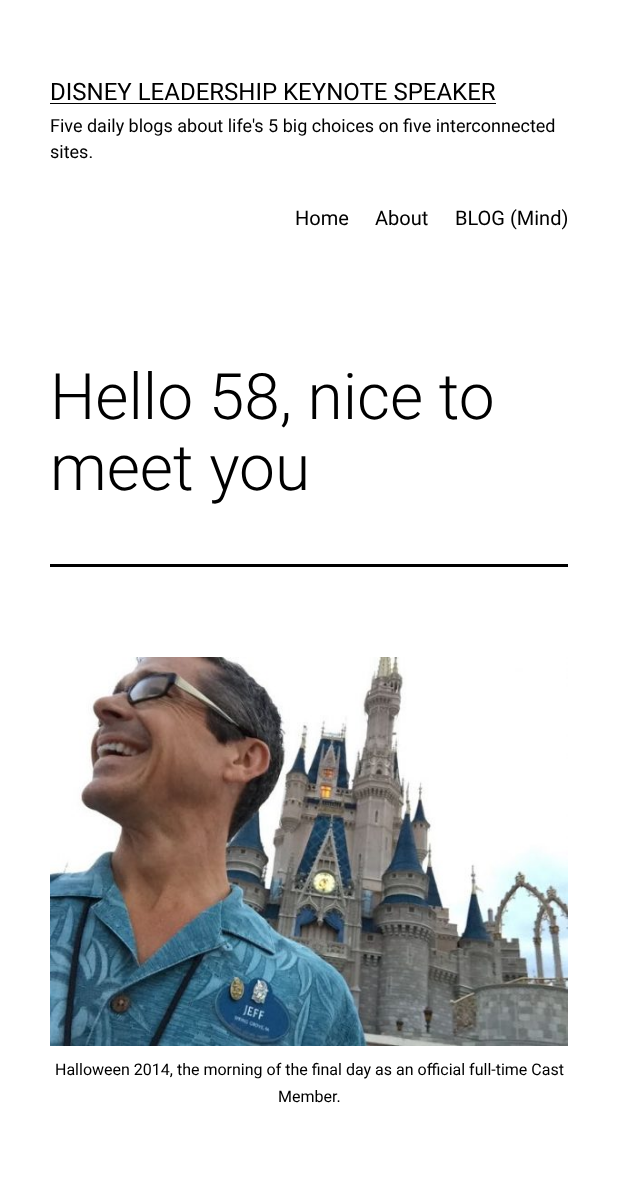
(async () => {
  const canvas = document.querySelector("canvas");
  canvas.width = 618;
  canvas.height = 1184;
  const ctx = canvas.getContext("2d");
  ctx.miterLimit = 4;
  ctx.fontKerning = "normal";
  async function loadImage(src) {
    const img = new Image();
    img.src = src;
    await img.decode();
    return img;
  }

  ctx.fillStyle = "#ffffff";
  ctx.fillRect(0, 0, 618, 1184);
  ctx.fillStyle = "#000000";
  ctx.fillRect(50, 103, 446, 1);
  ctx.fillRect(50, 564, 518, 3);
  ctx.drawImage(await loadImage("img/1.png"), 50, 657, 518, 389);
  ctx.font = "24px Roboto";
  ctx.fillText("DISNEY LEADERSHIP KEYNOTE SPEAKER", 50, 100);
  ctx.font = "18px Roboto";
  ctx.fillText("Five daily blogs about life's 5 big choices on five interconnected", 50, 132);
  ctx.fillText("sites.", 50, 158);
  ctx.font = "20px Roboto";
  for (const [text, x, y] of [
    ["Home", 295, 225],
    ["About", 375, 225],
    ["BLOG (Mind)", 455, 225],
  ]) {
    ctx.fillText(text, x, y);
  }
  ctx.font = "300 64px Roboto";
  ctx.fillText("Hello 58, nice to", 50, 419);
  ctx.fillText("meet you", 50, 490);
  ctx.font = "16px Roboto";
  ctx.fillText("Halloween 2014, the morning of the final day as an official full-time Cast", 55, 1075);
  ctx.fillText("Member.", 278, 1102);
})();
